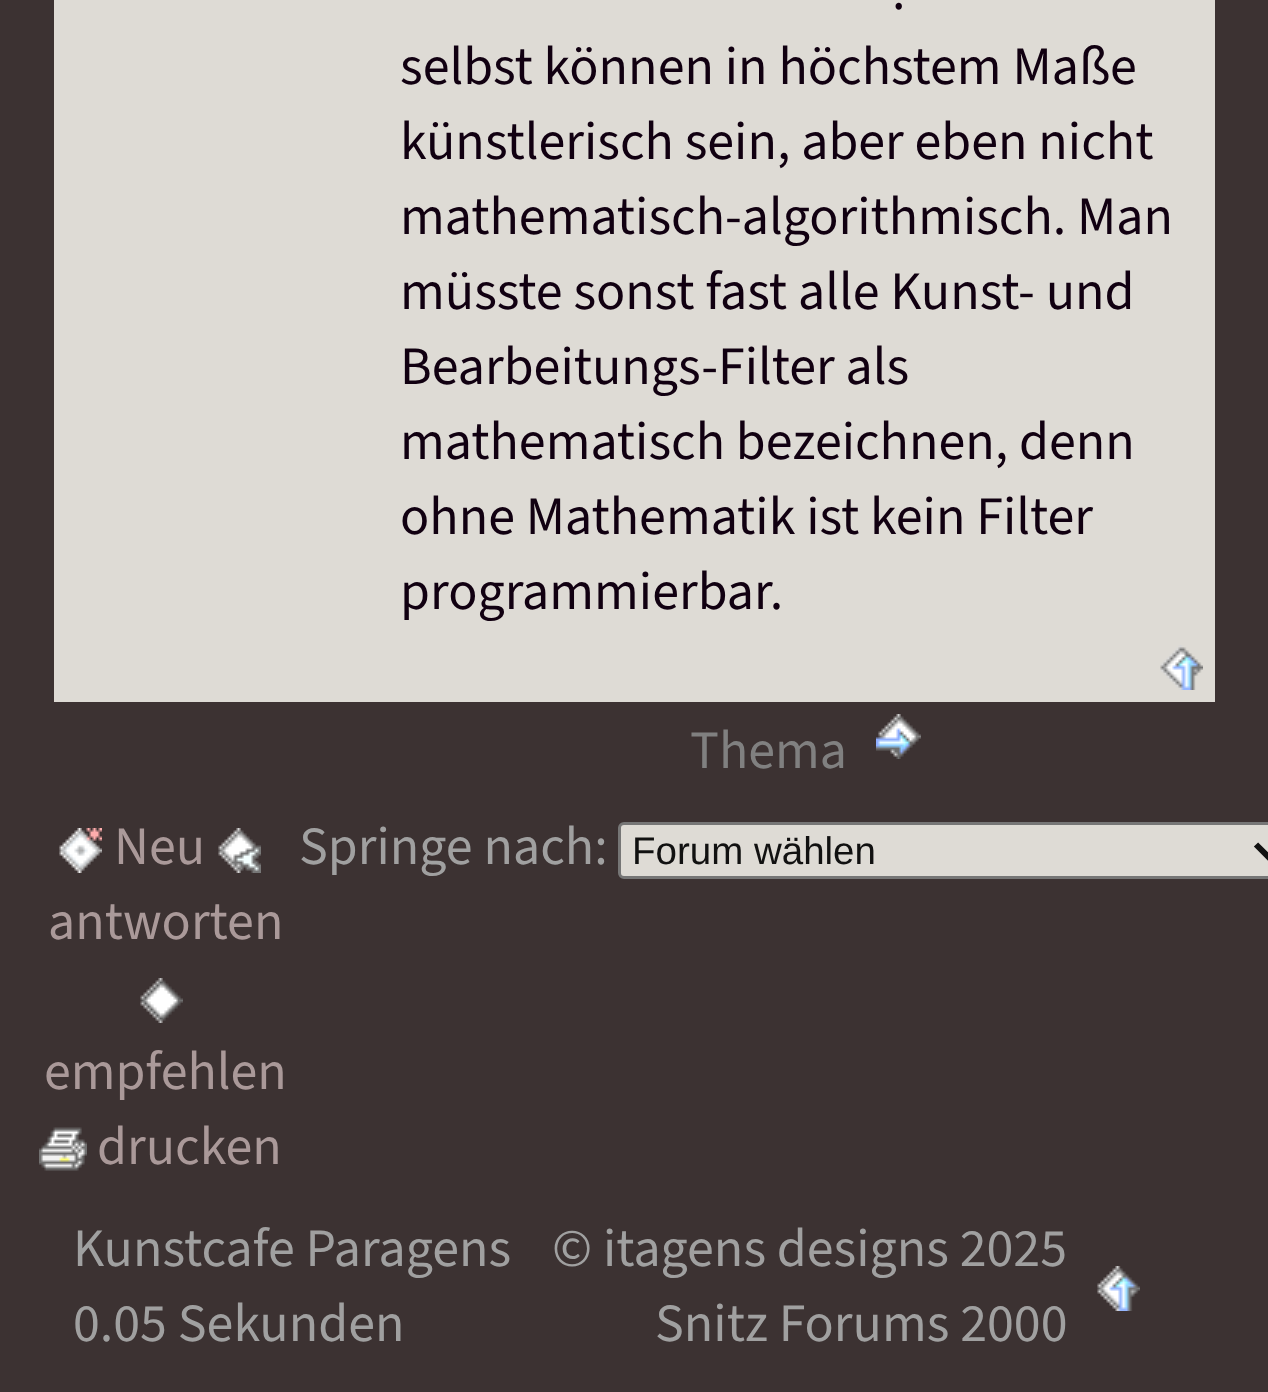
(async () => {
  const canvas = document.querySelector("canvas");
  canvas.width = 1268;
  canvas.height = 1392;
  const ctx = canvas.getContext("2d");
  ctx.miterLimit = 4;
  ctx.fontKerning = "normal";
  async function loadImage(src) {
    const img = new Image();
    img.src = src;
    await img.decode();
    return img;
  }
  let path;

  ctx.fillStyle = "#3c3232";
  ctx.fillRect(0, 0, 1268, 1392);
  ctx.fillStyle = "#dedbd5";
  ctx.fillRect(54, 0, 1161, 702);
  ctx.drawImage(await loadImage("img/1.png"), 1160, 645, 43, 45);
  ctx.drawImage(await loadImage("img/2.png"), 876, 714, 45, 45);
  ctx.drawImage(await loadImage("img/3.png"), 59, 828, 43, 45);
  ctx.drawImage(await loadImage("img/4.png"), 218, 828, 43, 45);
  ctx.drawImage(await loadImage("img/5.png"), 140, 978, 43, 45);
  ctx.drawImage(await loadImage("img/6.png"), 39, 1127, 48, 44);
  ctx.beginPath();
  ctx.roundRect(619.5, 823.5, 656, 54, 4.5);
  ctx.fill();
  ctx.strokeStyle = "#767676";
  ctx.lineWidth = 3;
  ctx.stroke();
  path = new Path2D("M1256 844.5L1268 856.5L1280 844.5");
  ctx.strokeStyle = "#111111";
  ctx.lineWidth = 6;
  ctx.stroke(path);
  ctx.drawImage(await loadImage("img/7.png"), 1097, 1266, 43, 45);
  ctx.font = "54px 'Source Sans 3'";
  ctx.fillStyle = "#110011";
  for (const [text, x, y] of [
    [".", 892, 9],
    ["selbst können in höchstem Maße", 400, 84],
    ["künstlerisch sein, aber eben nicht", 400, 159],
    ["mathematisch-algorithmisch. Man", 400, 234],
    ["müsste sonst fast alle Kunst- und", 400, 309],
    ["Bearbeitungs-Filter als", 400, 384],
    ["mathematisch bezeichnen, denn", 400, 459],
    ["ohne Mathematik ist kein Filter", 400, 534],
    ["programmierbar.", 400, 609],
  ]) {
    ctx.fillText(text, x, y);
  }
  ctx.fillStyle = "#808080";
  ctx.fillText("Thema", 690, 768);
  ctx.fillStyle = "#aa9999";
  for (const [text, x, y] of [
    ["Neu", 114, 864],
    ["antworten", 48, 939],
    ["empfehlen", 44, 1089],
    ["drucken", 97, 1164],
  ]) {
    ctx.fillText(text, x, y);
  }
  ctx.fillStyle = "#a0a0a0";
  ctx.fillText("Springe nach:", 299, 864);
  ctx.font = "38.5px Liberation Sans";
  ctx.fillStyle = "#111111";
  ctx.fillText("Forum wählen", 632, 864);
  ctx.font = "54px 'Source Sans 3'";
  ctx.fillStyle = "#a0a0a0";
  for (const [text, x, y] of [
    ["Kunstcafe Paragens", 73, 1266],
    ["0.05 Sekunden", 73, 1341],
    ["© itagens designs 2025", 552, 1266],
    ["Snitz Forums 2000", 655, 1341],
  ]) {
    ctx.fillText(text, x, y);
  }
})();
